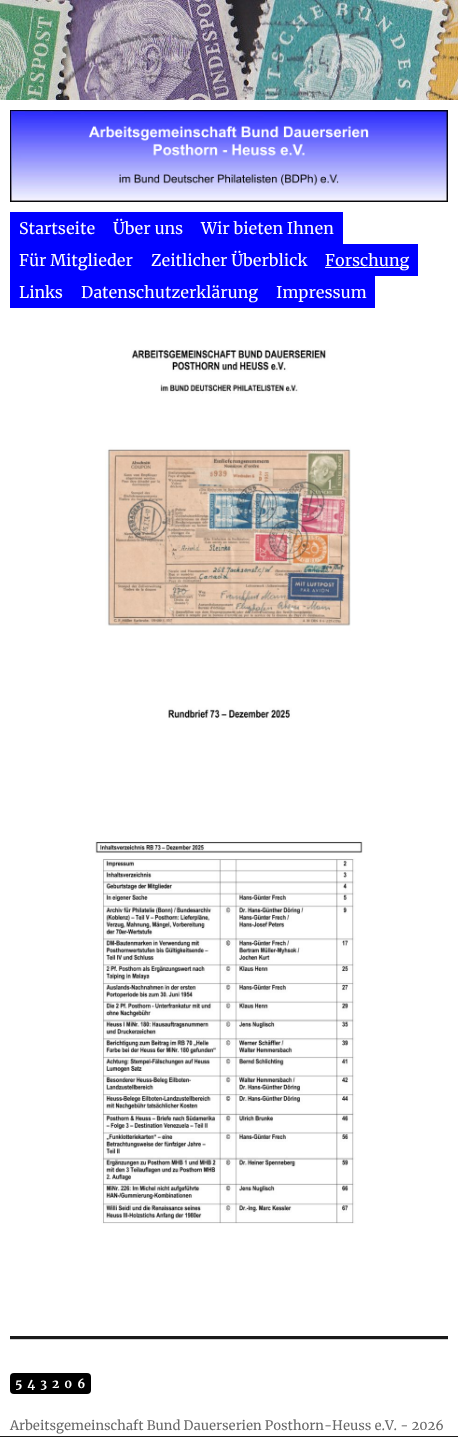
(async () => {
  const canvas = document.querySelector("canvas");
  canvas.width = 458;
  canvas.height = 1437;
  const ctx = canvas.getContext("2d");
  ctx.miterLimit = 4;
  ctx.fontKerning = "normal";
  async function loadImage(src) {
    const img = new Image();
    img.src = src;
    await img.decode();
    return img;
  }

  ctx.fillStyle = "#1a1a1a";
  ctx.fillRect(0, 0, 458, 1437);
  ctx.drawImage(await loadImage("img/1.png"), 0, 0, 458, 100);
  ctx.fillStyle = "#ffffff";
  ctx.fillRect(0, 100, 458, 1336);
  ctx.drawImage(await loadImage("img/2.png"), 10, 110, 438, 92);
  for (const [x, y, w, h, color] of [
    [10, 212, 333, 32, "#0000ff"],
    [10, 244, 408, 32, "#0000ff"],
    [325, 267, 84, 1, "#ffffff"],
    [10, 276, 365, 32, "#0000ff"],
  ]) {
    ctx.fillStyle = color;
    ctx.fillRect(x, y, w, h);
  }
  ctx.drawImage(await loadImage("img/3.png"), 105, 349, 246, 370);
  ctx.drawImage(await loadImage("img/4.png"), 95, 841, 268, 383);
  ctx.fillStyle = "#1a1a1a";
  ctx.fillRect(10, 1336, 438, 3);
  ctx.fillStyle = "#d1d1d1";
  ctx.fillRect(10, 1339, 438, 1);
  ctx.fillStyle = "#000000";
  ctx.beginPath();
  ctx.roundRect(10, 1373, 81, 21, 4);
  ctx.fill();
  ctx.font = "16px Merriweather";
  ctx.fillStyle = "#ffffff";
  for (const [text, x, y] of [
    ["Startseite", 19, 234],
    ["Über uns", 113, 234],
    ["Wir bieten Ihnen", 201, 234],
    ["Für Mitglieder", 19, 266],
    ["Zeitlicher Überblick", 151, 266],
    ["Forschung", 325, 266],
    ["Links", 19, 298],
    ["Datenschutzerklärung", 81, 298],
    ["Impressum", 276, 298],
  ]) {
    ctx.fillText(text, x, y);
  }
  ctx.letterSpacing = "5px";
  ctx.font = "bold 12px Merriweather";
  ctx.fillText("543206", 15, 1388);
  ctx.letterSpacing = "0px";
  ctx.font = "13px Merriweather";
  ctx.fillStyle = "#686868";
  ctx.fillText("Arbeitsgemeinschaft Bund Dauerserien Posthorn-Heuss e.V. - 2026", 10, 1430);
})();
